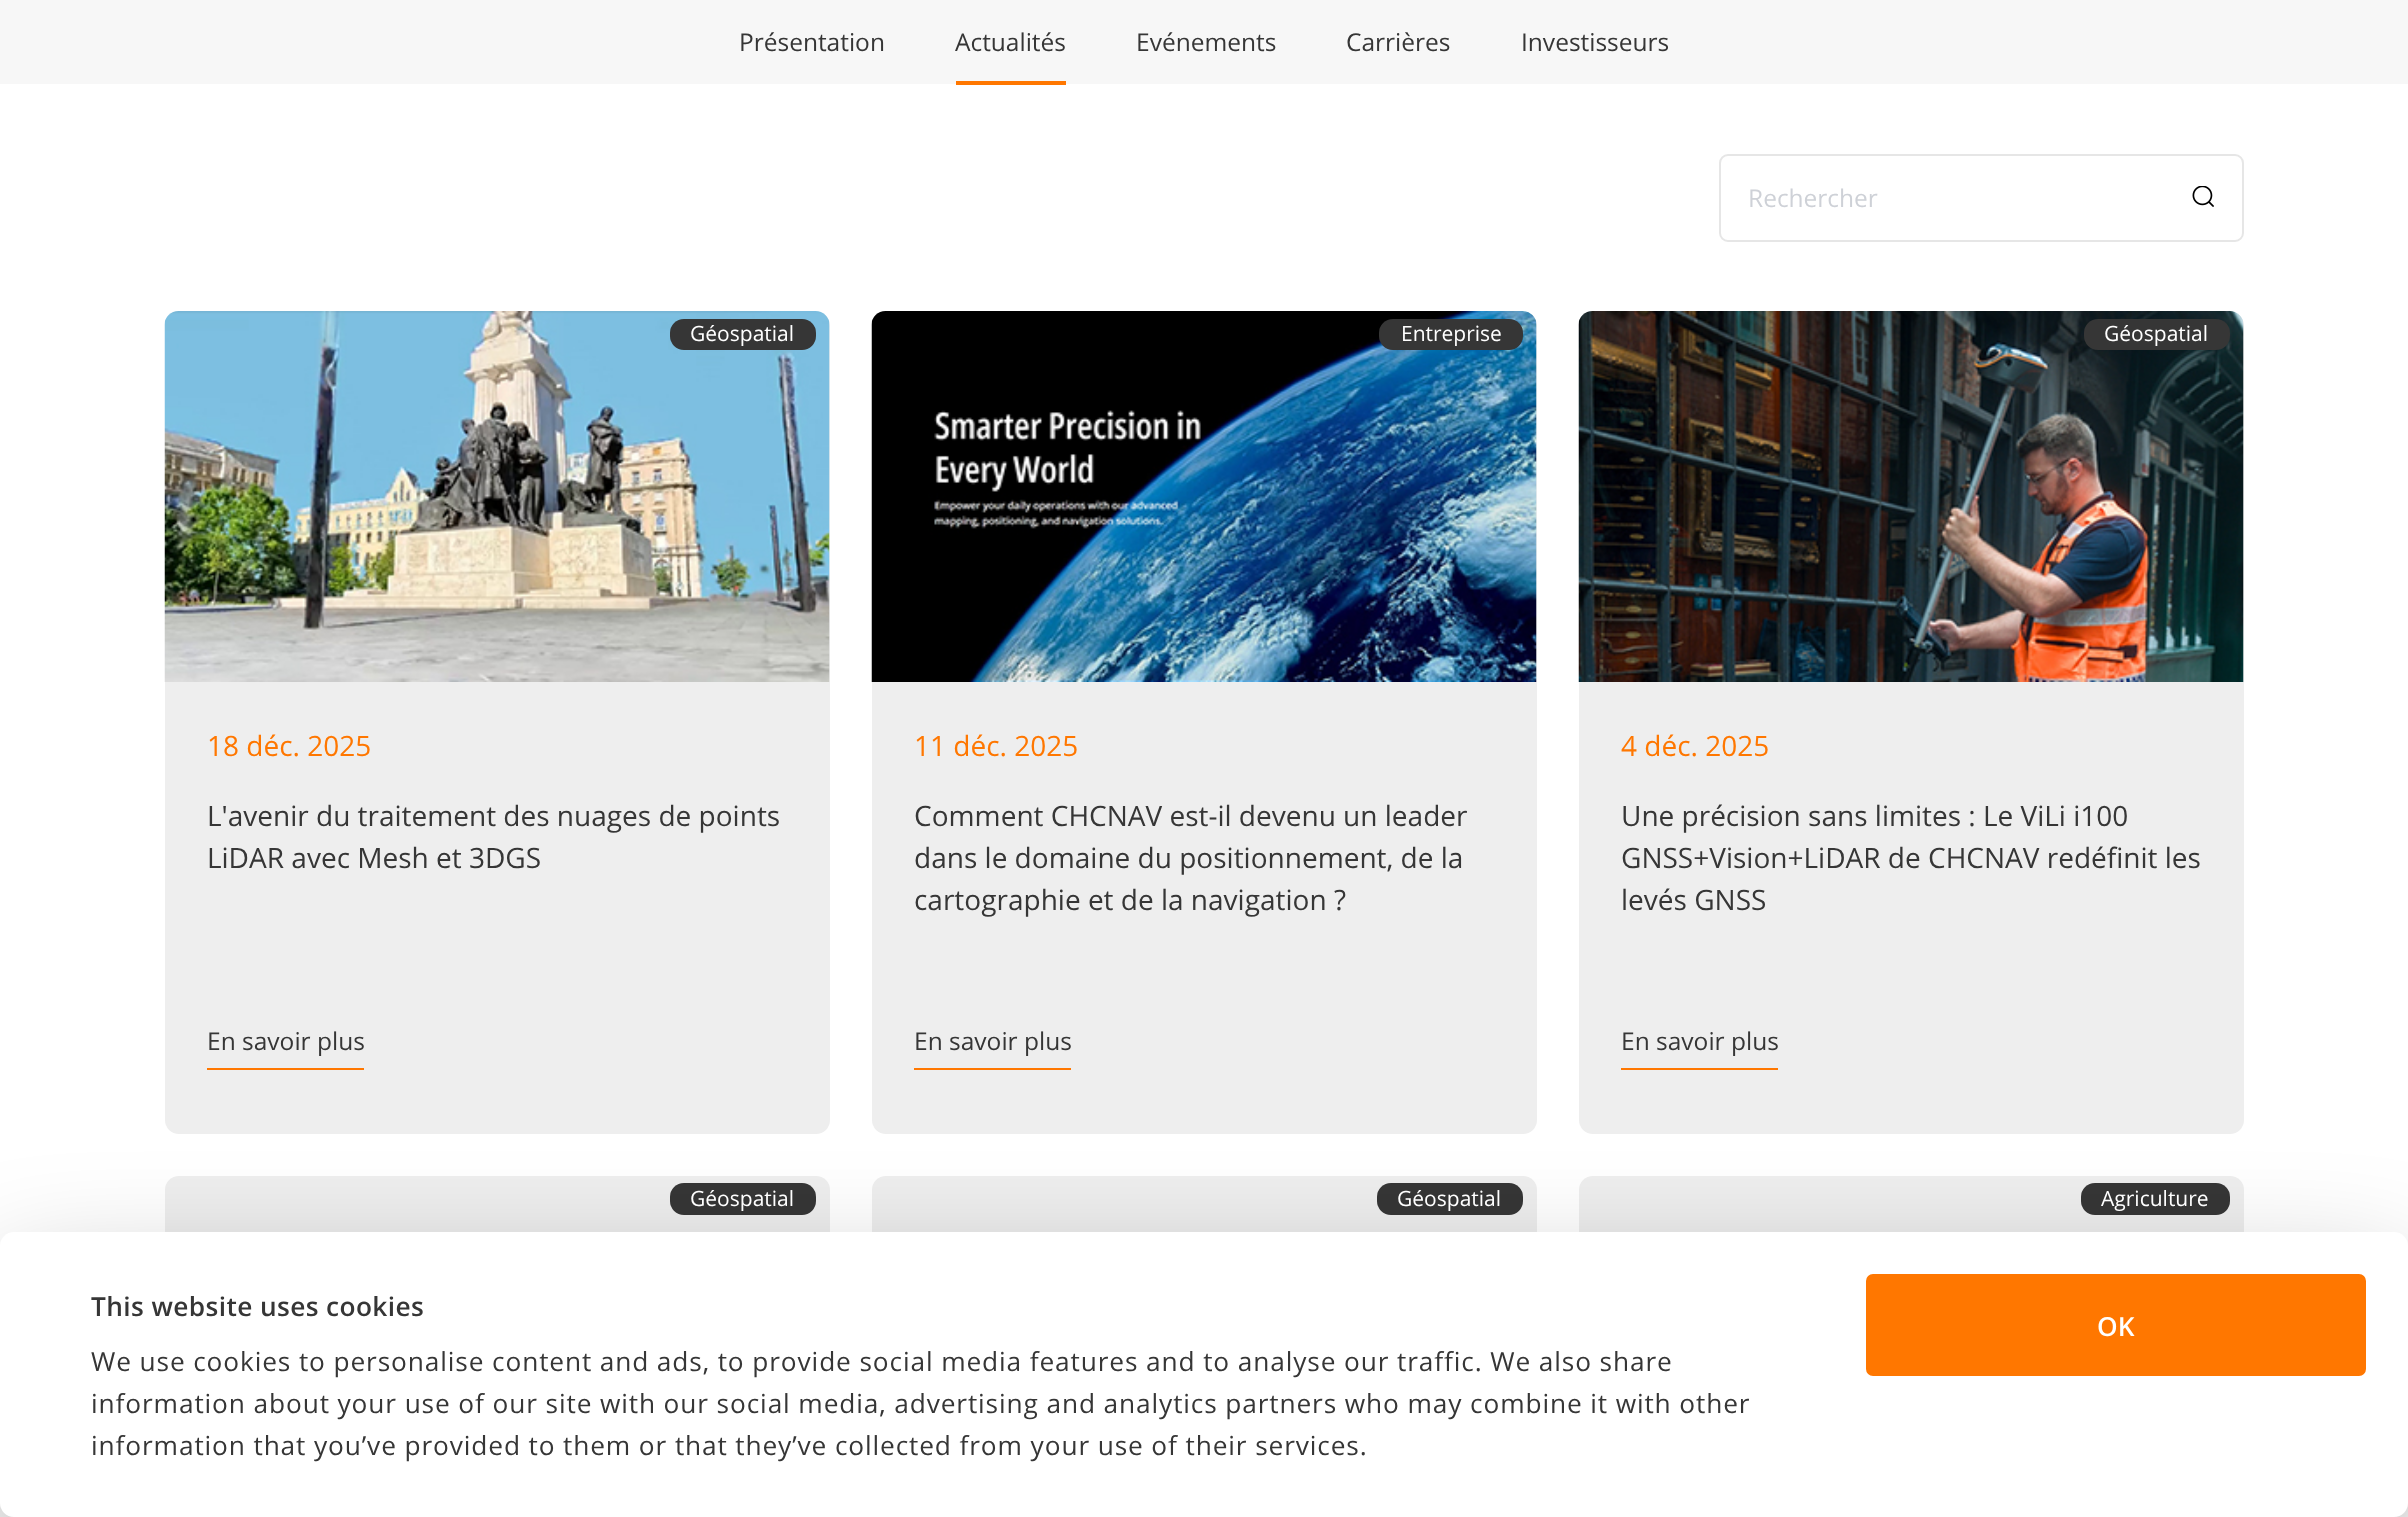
(async () => {
  const canvas = document.querySelector("canvas");
  canvas.width = 2408;
  canvas.height = 1517;
  const ctx = canvas.getContext("2d");
  ctx.miterLimit = 4;
  ctx.fontKerning = "normal";
  async function loadImage(src) {
    const img = new Image();
    img.src = src;
    await img.decode();
    return img;
  }

  ctx.fillStyle = "#ffffff";
  ctx.fillRect(0, 0, 2408, 1517);
  ctx.fillStyle = "#f7f7f7";
  ctx.fillRect(0, 0, 2408, 84);
  ctx.fillStyle = "#ff7700";
  ctx.fillRect(956, 81, 110, 4);
  ctx.beginPath();
  ctx.roundRect(1720, 155, 523, 86, 8);
  ctx.strokeStyle = "#e6e6e6";
  ctx.lineWidth = 2;
  ctx.stroke();
  ctx.drawImage(await loadImage("img/1.png"), 2192, 186, 22, 21);
  ctx.fillStyle = "#eeeeee";
  ctx.beginPath();
  ctx.roundRect(165, 312, 665, 822, 14);
  ctx.fill();
  ctx.drawImage(await loadImage("img/2.png"), 164, 311, 666, 371);
  ctx.fillStyle = "#363636";
  ctx.beginPath();
  ctx.roundRect(670, 319, 146, 31, 14);
  ctx.fill();
  ctx.fillStyle = "#ff7700";
  ctx.fillRect(207, 1068, 157, 2);
  ctx.fillStyle = "#eeeeee";
  ctx.beginPath();
  ctx.roundRect(872, 312, 665, 822, 14);
  ctx.fill();
  ctx.drawImage(await loadImage("img/3.png"), 871, 311, 666, 371);
  ctx.fillStyle = "#363636";
  ctx.beginPath();
  ctx.roundRect(1379, 319, 144, 31, 14);
  ctx.fill();
  ctx.fillStyle = "#ff7700";
  ctx.fillRect(914, 1068, 157, 2);
  ctx.fillStyle = "#eeeeee";
  ctx.beginPath();
  ctx.roundRect(1579, 312, 665, 822, 14);
  ctx.fill();
  ctx.drawImage(await loadImage("img/4.png"), 1578, 311, 666, 371);
  ctx.fillStyle = "#363636";
  ctx.beginPath();
  ctx.roundRect(2084, 319, 146, 31, 14);
  ctx.fill();
  ctx.fillStyle = "#ff7700";
  ctx.fillRect(1621, 1068, 157, 2);
  ctx.fillStyle = "#eeeeee";
  ctx.beginPath();
  ctx.roundRect(165, 1176, 665, 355, 14);
  ctx.fill();
  ctx.fillStyle = "#363636";
  ctx.beginPath();
  ctx.roundRect(670, 1183, 146, 32, 14);
  ctx.fill();
  ctx.fillStyle = "#eeeeee";
  ctx.beginPath();
  ctx.roundRect(872, 1176, 665, 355, 14);
  ctx.fill();
  ctx.fillStyle = "#363636";
  ctx.beginPath();
  ctx.roundRect(1377, 1183, 146, 32, 14);
  ctx.fill();
  ctx.fillStyle = "#eeeeee";
  ctx.beginPath();
  ctx.roundRect(1579, 1176, 665, 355, 14);
  ctx.fill();
  ctx.fillStyle = "#363636";
  ctx.beginPath();
  ctx.roundRect(2081, 1183, 149, 32, 14);
  ctx.fill();
  ctx.fillStyle = "rgba(0, 0, 0, 0.3)";
  ctx.filter = "blur(61px)";
  ctx.beginPath();
  ctx.roundRect(0, 1285, 2408, 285, 14);
  ctx.fill();
  ctx.filter = "none";
  ctx.fillStyle = "#ffffff";
  ctx.beginPath();
  ctx.roundRect(0, 1232, 2408, 285, 14);
  ctx.fill();
  ctx.fillStyle = "#ff7700";
  ctx.beginPath();
  ctx.roundRect(1868, 1276, 496, 98, 5);
  ctx.fill();
  ctx.strokeStyle = "#ff7700";
  ctx.lineWidth = 4;
  ctx.stroke();
  ctx.font = "24.5px Open Sans";
  ctx.fillStyle = "#363636";
  for (const [text, x, y] of [
    ["Présentation", 739, 51],
    ["Actualités", 955, 51],
    ["Evénements", 1136, 51],
    ["Carrières", 1346, 51],
    ["Investisseurs", 1521, 51],
  ]) {
    ctx.fillText(text, x, y);
  }
  ctx.fillStyle = "#ced1d7";
  ctx.fillText("Rechercher", 1748, 207);
  ctx.font = "21px Open Sans";
  ctx.fillStyle = "#ffffff";
  ctx.fillText("Géospatial", 690, 341);
  ctx.font = "28px Open Sans";
  ctx.fillStyle = "#ff7700";
  ctx.fillText("18 déc. 2025", 207, 756);
  ctx.fillStyle = "#363636";
  ctx.fillText("L'avenir du traitement des nuages de points", 207, 826);
  ctx.fillText("LiDAR avec Mesh et 3DGS", 207, 868);
  ctx.font = "24.5px Open Sans";
  ctx.fillText("En savoir plus", 207, 1050);
  ctx.font = "21px Open Sans";
  ctx.fillStyle = "#ffffff";
  ctx.fillText("Entreprise", 1401, 341);
  ctx.font = "28px Open Sans";
  ctx.fillStyle = "#ff7700";
  ctx.fillText("11 déc. 2025", 914, 756);
  ctx.fillStyle = "#363636";
  for (const [text, x, y] of [
    ["Comment CHCNAV est-il devenu un leader", 914, 826],
    ["dans le domaine du positionnement, de la", 914, 868],
    ["cartographie et de la navigation ?", 914, 910],
  ]) {
    ctx.fillText(text, x, y);
  }
  ctx.font = "24.5px Open Sans";
  ctx.fillText("En savoir plus", 914, 1050);
  ctx.font = "21px Open Sans";
  ctx.fillStyle = "#ffffff";
  ctx.fillText("Géospatial", 2104, 341);
  ctx.font = "28px Open Sans";
  ctx.fillStyle = "#ff7700";
  ctx.fillText("4 déc. 2025", 1621, 756);
  ctx.fillStyle = "#363636";
  for (const [text, x, y] of [
    ["Une précision sans limites : Le ViLi i100", 1621, 826],
    ["GNSS+Vision+LiDAR de CHCNAV redéfinit les", 1621, 868],
    ["levés GNSS", 1621, 910],
  ]) {
    ctx.fillText(text, x, y);
  }
  ctx.font = "24.5px Open Sans";
  ctx.fillText("En savoir plus", 1621, 1050);
  ctx.font = "21px Open Sans";
  ctx.fillStyle = "#ffffff";
  for (const [text, x, y] of [
    ["Géospatial", 690, 1206],
    ["Géospatial", 1397, 1206],
    ["Agriculture", 2101, 1206],
  ]) {
    ctx.fillText(text, x, y);
  }
  ctx.letterSpacing = "0.4px";
  ctx.font = "600 26.25px Open Sans";
  ctx.fillStyle = "#363636";
  ctx.fillText("This website uses cookies", 91, 1316);
  ctx.letterSpacing = "0.88px";
  ctx.font = "26.25px Open Sans";
  for (const [text, x, y] of [
    ["We use cookies to personalise content and ads, to provide social media features and to analyse our traffic. We also share", 91, 1371],
    ["information about your use of our site with our social media, advertising and analytics partners who may combine it with other", 91, 1413],
    ["information that you’ve provided to them or that they’ve collected from your use of their services.", 91, 1455],
  ]) {
    ctx.fillText(text, x, y);
  }
  ctx.letterSpacing = "0px";
  ctx.font = "600 26.25px Open Sans";
  ctx.fillStyle = "#ffffff";
  ctx.fillText("OK", 2097, 1336);
})();
